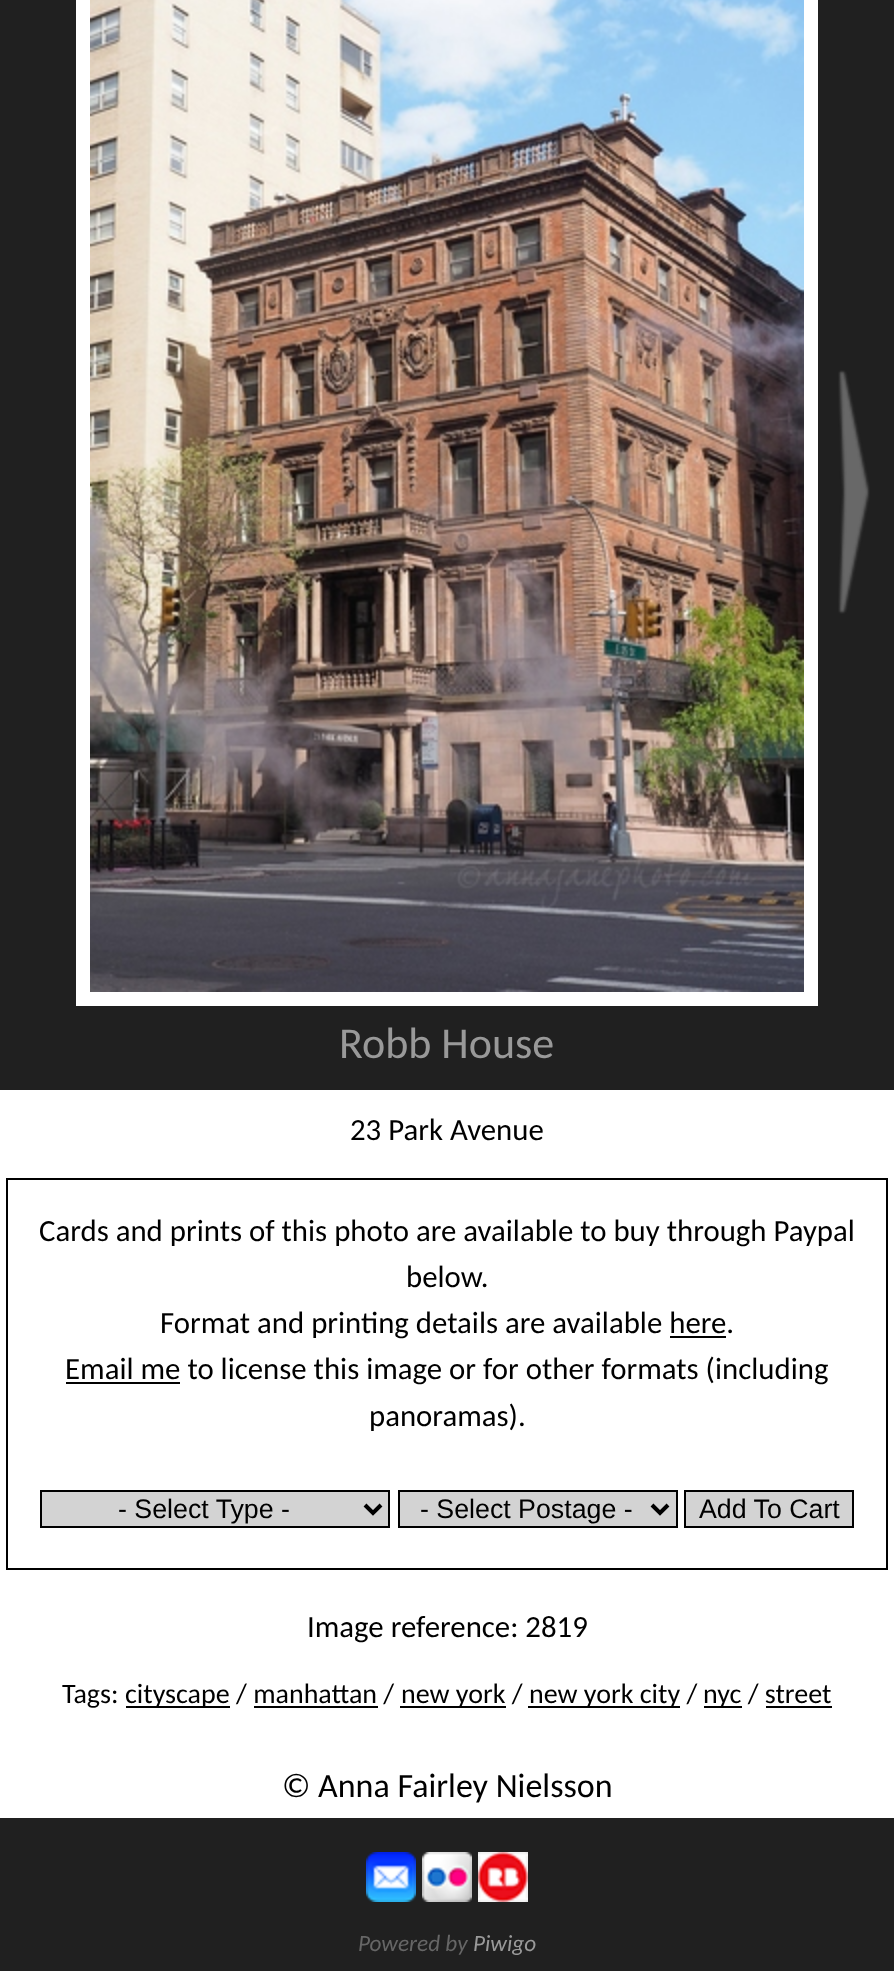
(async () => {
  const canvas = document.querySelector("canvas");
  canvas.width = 894;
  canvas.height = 1971;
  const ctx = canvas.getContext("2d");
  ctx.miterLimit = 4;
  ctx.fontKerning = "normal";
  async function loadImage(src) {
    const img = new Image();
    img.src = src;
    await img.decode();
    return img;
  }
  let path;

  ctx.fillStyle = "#202020";
  ctx.fillRect(0, 0, 894, 1971);
  ctx.strokeStyle = "#ffffff";
  ctx.lineWidth = 14;
  ctx.strokeRect(83, -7, 728, 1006);
  ctx.drawImage(await loadImage("img/1.png"), 90, 0, 714, 992);
  ctx.drawImage(await loadImage("img/2.png"), 838, 370, 32, 244);
  ctx.fillStyle = "#ffffff";
  ctx.fillRect(0, 1090, 894, 728);
  ctx.strokeStyle = "#000000";
  ctx.lineWidth = 2;
  ctx.strokeRect(7, 1179, 880, 390);
  ctx.fillStyle = "#000000";
  ctx.fillRect(670, 1336, 56, 2);
  ctx.fillRect(66, 1382, 114, 2);
  ctx.fillStyle = "#d3d3d3";
  ctx.beginPath();
  ctx.rect(41, 1491, 348, 36);
  ctx.fill();
  ctx.stroke();
  path = new Path2D("M365 1505L373 1513L381 1505");
  ctx.lineWidth = 4;
  ctx.stroke(path);
  ctx.beginPath();
  ctx.rect(399, 1491, 278, 36);
  ctx.fill();
  ctx.lineWidth = 2;
  ctx.stroke();
  path = new Path2D("M652 1505L660 1513L668 1505");
  ctx.lineWidth = 4;
  ctx.stroke(path);
  ctx.beginPath();
  ctx.rect(685, 1491, 168, 36);
  ctx.fill();
  ctx.lineWidth = 2;
  ctx.stroke();
  for (const [x, y, w, h, color] of [
    [126, 1706, 104, 2, "#000000"],
    [400, 1706, 106, 2, "#000000"],
    [528, 1706, 152, 2, "#000000"],
    [704, 1706, 38, 2, "#000000"],
    [254, 1706, 124, 2, "#000000"],
    [766, 1706, 66, 2, "#000000"],
  ]) {
    ctx.fillStyle = color;
    ctx.fillRect(x, y, w, h);
  }
  ctx.drawImage(await loadImage("img/3.png"), 366, 1852, 50, 50);
  ctx.drawImage(await loadImage("img/4.png"), 422, 1852, 50, 50);
  ctx.drawImage(await loadImage("img/5.png"), 478, 1852, 50, 50);
  ctx.font = "44px Carlito";
  ctx.fillStyle = "#999999";
  ctx.fillText("Robb House", 339, 1058);
  ctx.font = "30.8px Carlito";
  ctx.fillStyle = "#000000";
  for (const [text, x, y] of [
    ["23 Park Avenue", 350, 1140],
    ["Cards and prints of this photo are available to buy through Paypal", 39, 1241],
    ["below.", 406, 1287],
    ["Format and printing details are available here.", 160, 1333],
    ["Email me to license this image or for other formats (including", 65, 1379],
    ["panoramas).", 369, 1426],
  ]) {
    ctx.fillText(text, x, y);
  }
  ctx.font = "26.75px Liberation Sans";
  for (const [text, x, y] of [
    ["- Select Type -", 118, 1518],
    ["- Select Postage -", 420, 1518],
    ["Add To Cart", 699, 1518],
  ]) {
    ctx.fillText(text, x, y);
  }
  ctx.font = "30.8px Carlito";
  ctx.fillText("Image reference: 2819", 307, 1637);
  ctx.font = "28px Carlito";
  for (const [text, x, y] of [
    ["Tags:", 62, 1703],
    ["cityscape / manhattan /", 125, 1703],
    ["new york /", 401, 1703],
    ["new york city /", 529, 1703],
    ["nyc / street", 703, 1703],
  ]) {
    ctx.fillText(text, x, y);
  }
  ctx.font = "34px Carlito";
  ctx.fillText("© Anna Fairley Nielsson", 282, 1797);
  ctx.font = "italic 23.25px Carlito";
  ctx.fillStyle = "#666666";
  ctx.fillText("Powered by", 358, 1951);
  ctx.fillStyle = "#999999";
  ctx.fillText("Piwigo", 473, 1951);
})();
